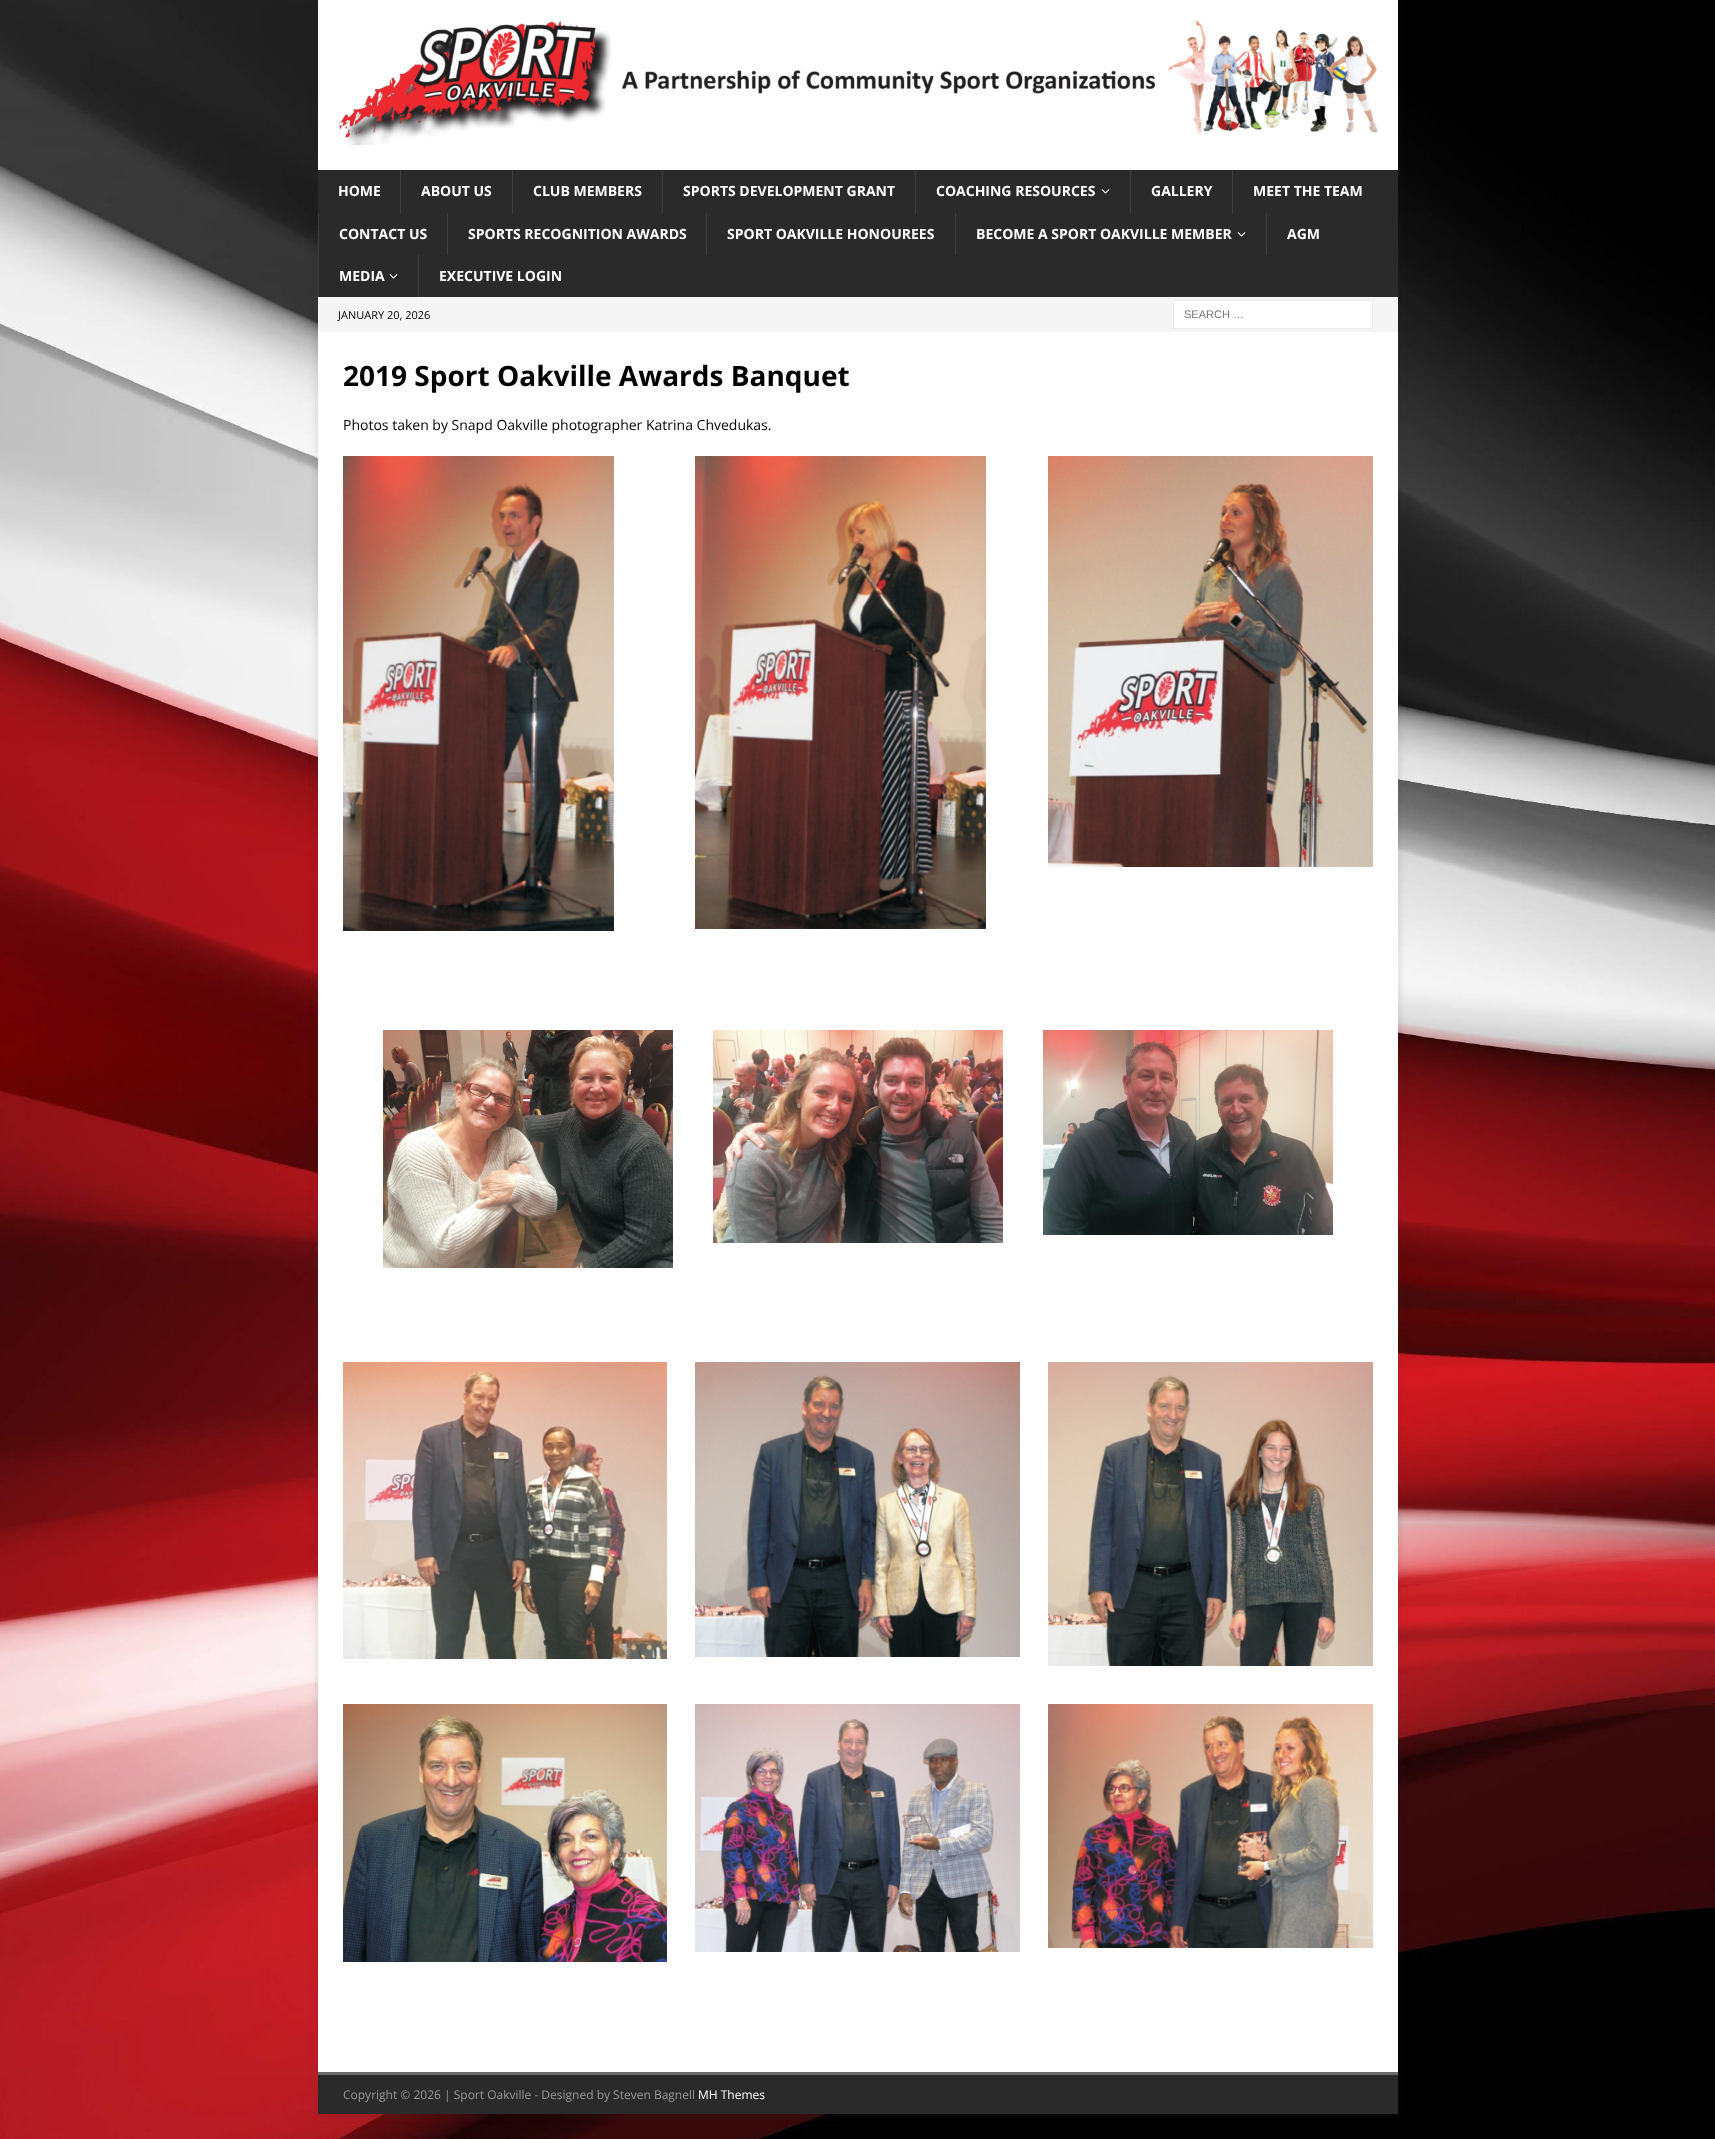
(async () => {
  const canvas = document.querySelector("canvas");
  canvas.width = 1715;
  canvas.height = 2139;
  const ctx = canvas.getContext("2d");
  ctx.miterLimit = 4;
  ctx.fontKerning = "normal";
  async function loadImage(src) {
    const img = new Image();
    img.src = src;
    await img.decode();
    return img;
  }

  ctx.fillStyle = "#ffffff";
  ctx.fillRect(0, 0, 1715, 2139);
  ctx.drawImage(await loadImage("img/1.png"), 0, 0, 1715, 2139);
  ctx.fillStyle = "rgba(50, 50, 50, 0.17)";
  ctx.filter = "blur(5px)";
  ctx.beginPath();
  ctx.rect(318, -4, 1080, 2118);
  ctx.fill();
  ctx.filter = "none";
  ctx.fillStyle = "#ffffff";
  ctx.fillRect(318, 0, 1080, 170);
  ctx.drawImage(await loadImage("img/2.png"), 339, 20, 1039, 125);
  for (const [x, y, w, h, color] of [
    [318, 170, 1080, 127, "#2a2a2a"],
    [400, 170, 1, 43, "#3f3f3f"],
    [512, 170, 1, 43, "#3f3f3f"],
    [662, 170, 1, 43, "#3f3f3f"],
    [915, 170, 1, 43, "#3f3f3f"],
  ]) {
    ctx.fillStyle = color;
    ctx.fillRect(x, y, w, h);
  }
  ctx.drawImage(await loadImage("img/3.png"), 1101, 189, 9, 5);
  for (const [x, y, w, h, color] of [
    [1130, 170, 1, 43, "#3f3f3f"],
    [1232, 170, 1, 43, "#3f3f3f"],
    [318, 213, 1, 84, "#3f3f3f"],
    [447, 213, 1, 42, "#3f3f3f"],
    [706, 213, 1, 42, "#3f3f3f"],
    [955, 213, 1, 42, "#3f3f3f"],
  ]) {
    ctx.fillStyle = color;
    ctx.fillRect(x, y, w, h);
  }
  ctx.drawImage(await loadImage("img/3.png"), 1237, 232, 9, 5);
  ctx.fillRect(1266, 213, 1, 42);
  ctx.drawImage(await loadImage("img/3.png"), 389, 274, 9, 5);
  ctx.fillRect(418, 255, 1, 42);
  ctx.fillStyle = "#f5f5f5";
  ctx.fillRect(318, 297, 1080, 35);
  ctx.fillStyle = "#ffffff";
  ctx.beginPath();
  ctx.rect(1173.5, 300.5, 199, 28);
  ctx.fill();
  ctx.strokeStyle = "#ebebeb";
  ctx.stroke();
  ctx.fillRect(318, 332, 1080, 1740);
  ctx.drawImage(await loadImage("img/4.png"), 343, 456, 271, 475);
  ctx.drawImage(await loadImage("img/5.png"), 695, 456, 291, 473);
  ctx.drawImage(await loadImage("img/6.png"), 1048, 456, 325, 411);
  ctx.drawImage(await loadImage("img/7.png"), 383, 1030, 290, 238);
  ctx.drawImage(await loadImage("img/8.png"), 713, 1030, 290, 213);
  ctx.drawImage(await loadImage("img/9.png"), 1043, 1030, 290, 205);
  ctx.drawImage(await loadImage("img/10.png"), 343, 1362, 324, 297);
  ctx.drawImage(await loadImage("img/11.png"), 695, 1362, 325, 295);
  ctx.drawImage(await loadImage("img/12.png"), 1048, 1362, 325, 304);
  ctx.drawImage(await loadImage("img/13.png"), 343, 1704, 324, 258);
  ctx.drawImage(await loadImage("img/14.png"), 695, 1704, 325, 248);
  ctx.drawImage(await loadImage("img/15.png"), 1048, 1704, 325, 244);
  ctx.fillStyle = "#2a2a2a";
  ctx.fillRect(318, 2075, 1080, 39);
  ctx.fillStyle = "#6a6a6a";
  ctx.fillRect(318, 2072, 1080, 3);
  ctx.font = "bold 14px Open Sans";
  ctx.fillStyle = "#ffffff";
  for (const [text, x, y] of [
    ["HOME", 338, 196],
    ["ABOUT US", 421, 196],
    ["CLUB MEMBERS", 533, 196],
    ["SPORTS DEVELOPMENT GRANT", 683, 196],
    ["COACHING RESOURCES", 936, 196],
    ["GALLERY", 1151, 196],
    ["MEET THE TEAM", 1253, 196],
    ["CONTACT US", 339, 239],
    ["SPORTS RECOGNITION AWARDS", 468, 239],
    ["SPORT OAKVILLE HONOUREES", 727, 239],
    ["BECOME A SPORT OAKVILLE MEMBER", 976, 239],
    ["AGM", 1287, 239],
    ["MEDIA", 339, 281],
    ["EXECUTIVE LOGIN", 439, 281],
  ]) {
    ctx.fillText(text, x, y);
  }
  ctx.font = "11px Open Sans";
  ctx.fillStyle = "#000000";
  ctx.fillText("JANUARY 20, 2026", 338, 319);
  ctx.font = "11px Liberation Sans";
  ctx.fillStyle = "#757575";
  ctx.fillText("SEARCH …", 1184, 318);
  ctx.font = "bold 28px Open Sans";
  ctx.fillStyle = "#000000";
  ctx.fillText("2019 Sport Oakville Awards Banquet", 343, 386);
  ctx.font = "14px Open Sans";
  ctx.fillText("Photos taken by Snapd Oakville photographer Katrina Chvedukas.", 343, 430);
  ctx.font = "12px Open Sans";
  ctx.fillStyle = "#999999";
  ctx.fillText("Copyright © 2026 | Sport Oakville - Designed by Steven Bagnell", 343, 2099);
  ctx.fillStyle = "#ffffff";
  ctx.fillText("MH Themes", 698, 2099);
})();
